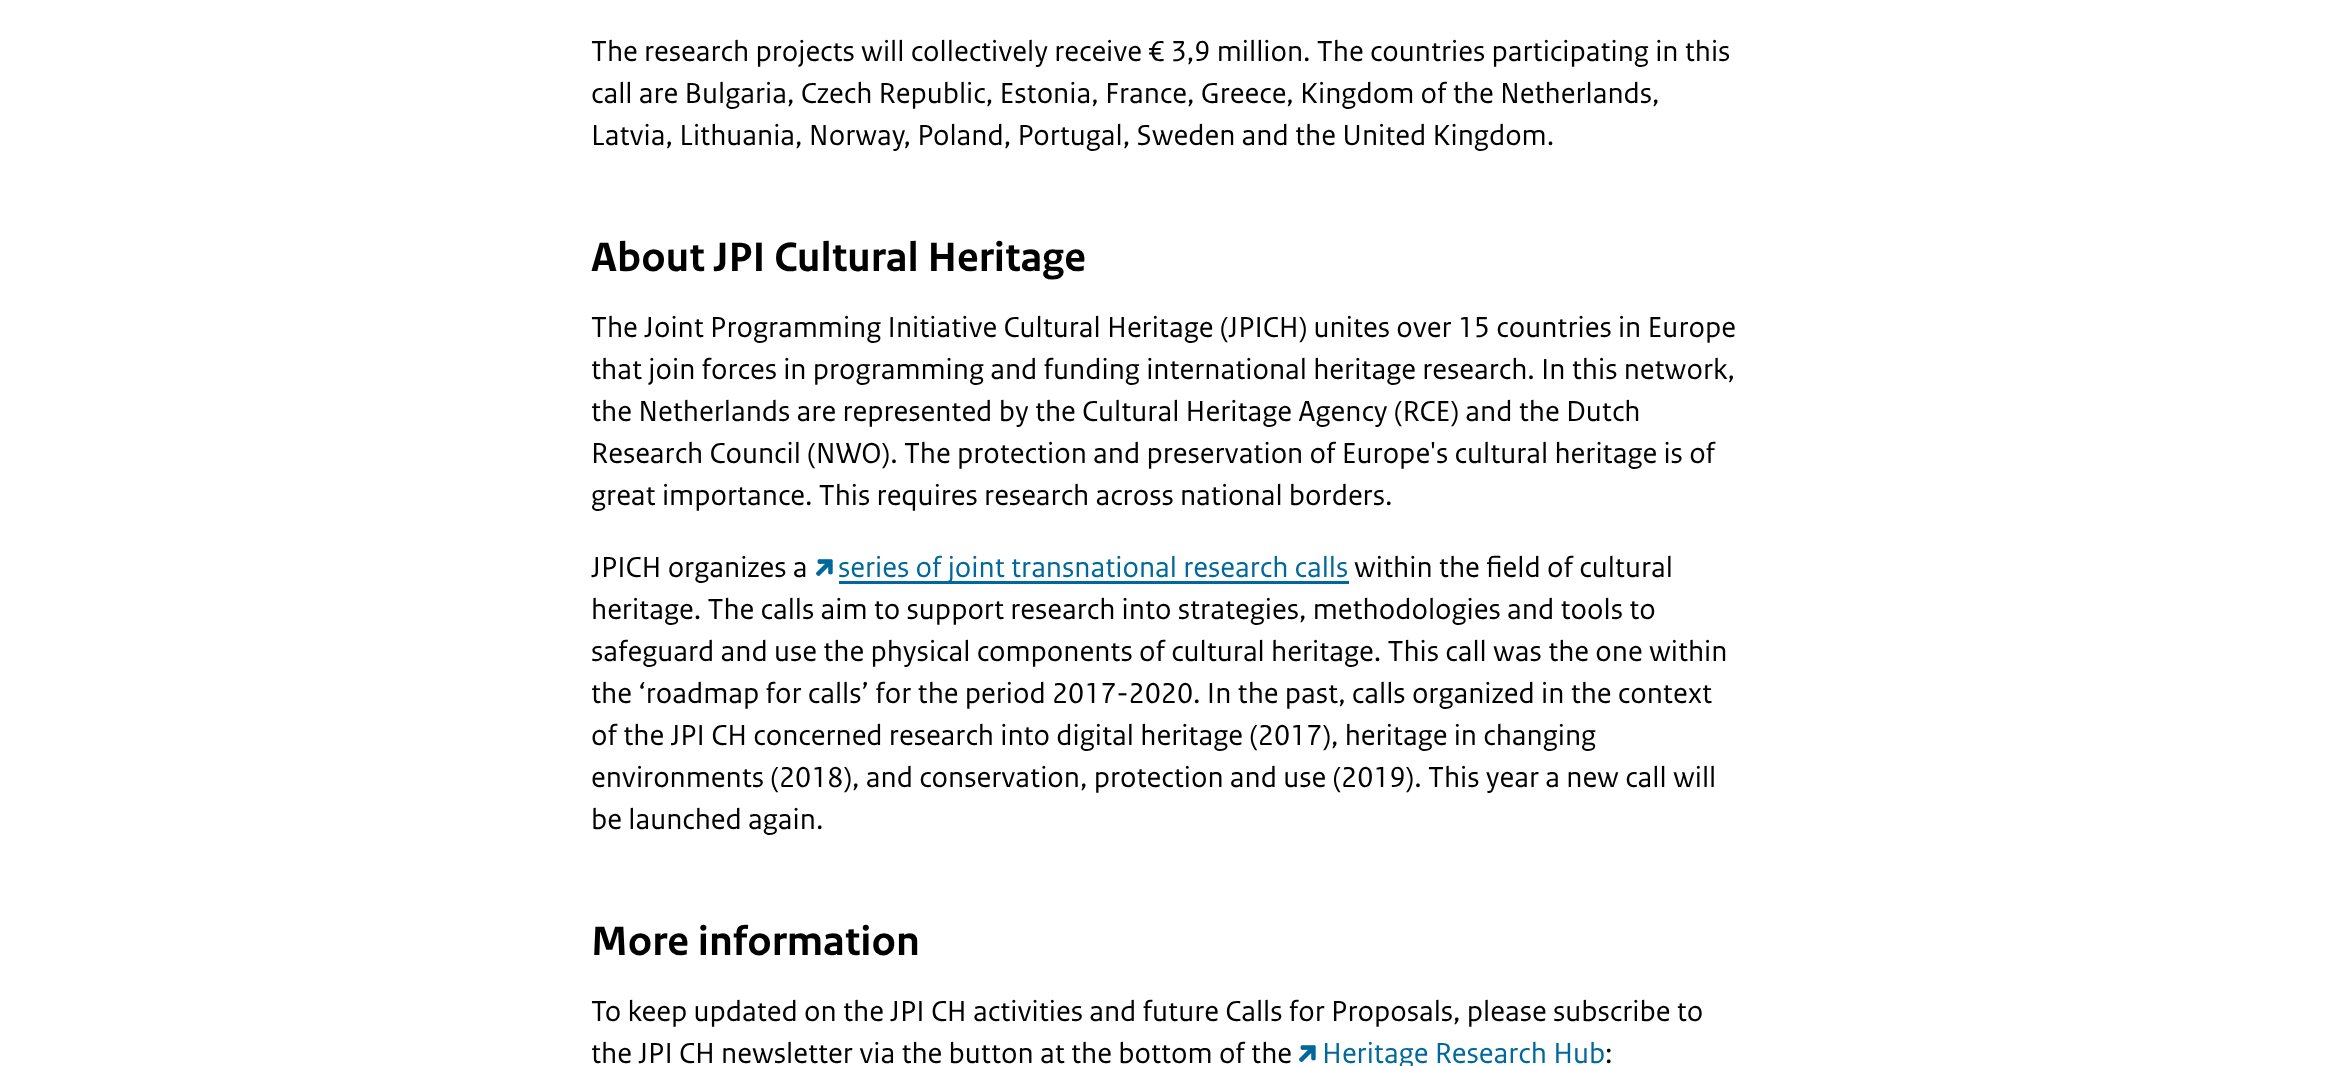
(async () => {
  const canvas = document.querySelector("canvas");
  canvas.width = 2334;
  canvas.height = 1066;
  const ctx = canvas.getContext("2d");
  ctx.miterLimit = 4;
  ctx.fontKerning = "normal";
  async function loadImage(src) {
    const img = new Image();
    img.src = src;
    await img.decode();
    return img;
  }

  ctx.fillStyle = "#ffffff";
  ctx.fillRect(0, 0, 2334, 1066);
  ctx.drawImage(await loadImage("img/1.png"), 816, 559, 17, 17);
  ctx.fillStyle = "#01689b";
  ctx.fillRect(839, 581, 510, 3);
  ctx.drawImage(await loadImage("img/1.png"), 1299, 1045, 17, 17);
  ctx.font = "30.4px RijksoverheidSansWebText";
  ctx.fillStyle = "#000000";
  for (const [text, x, y] of [
    ["The research projects will collectively receive € 3,9 million. The countries participating in this", 591, 61],
    ["call are Bulgaria, Czech Republic, Estonia, France, Greece, Kingdom of the Netherlands,", 591, 103],
    ["Latvia, Lithuania, Norway, Poland, Portugal, Sweden and the United Kingdom.", 591, 145],
  ]) {
    ctx.fillText(text, x, y);
  }
  ctx.font = "bold 43.25px RijksoverheidSansWebText";
  ctx.fillText("About JPI Cultural Heritage", 591, 271);
  ctx.font = "30.4px RijksoverheidSansWebText";
  for (const [text, x, y] of [
    ["The Joint Programming Initiative Cultural Heritage (JPICH) unites over 15 countries in Europe", 591, 337],
    ["that join forces in programming and funding international heritage research. In this network,", 591, 379],
    ["the Netherlands are represented by the Cultural Heritage Agency (RCE) and the Dutch", 591, 421],
    ["Research Council (NWO). The protection and preservation of Europe's cultural heritage is of", 591, 463],
    ["great importance. This requires research across national borders.", 591, 505],
    ["JPICH organizes a", 591, 577],
  ]) {
    ctx.fillText(text, x, y);
  }
  ctx.fillStyle = "#01689b";
  ctx.fillText("series of joint transnational research calls", 838, 577);
  ctx.fillStyle = "#000000";
  for (const [text, x, y] of [
    ["within the field of cultural", 1354, 577],
    ["heritage. The calls aim to support research into strategies, methodologies and tools to", 591, 619],
    ["safeguard and use the physical components of cultural heritage. This call was the one within", 591, 661],
    ["the ‘roadmap for calls’ for the period 2017-2020. In the past, calls organized in the context", 591, 703],
    ["of the JPI CH concerned research into digital heritage (2017), heritage in changing", 591, 745],
    ["environments (2018), and conservation, protection and use (2019). This year a new call will", 591, 787],
    ["be launched again.", 591, 829],
  ]) {
    ctx.fillText(text, x, y);
  }
  ctx.font = "bold 43.25px RijksoverheidSansWebText";
  ctx.fillText("More information", 591, 955);
  ctx.font = "30.4px RijksoverheidSansWebText";
  ctx.fillText("To keep updated on the JPI CH activities and future Calls for Proposals, please subscribe to", 591, 1021);
  ctx.fillText("the JPI CH newsletter via the button at the bottom of the", 591, 1063);
  ctx.fillStyle = "#01689b";
  ctx.fillText("Heritage Research Hub", 1322, 1063);
  ctx.fillStyle = "#000000";
  ctx.fillText(":", 1605, 1063);
})();
